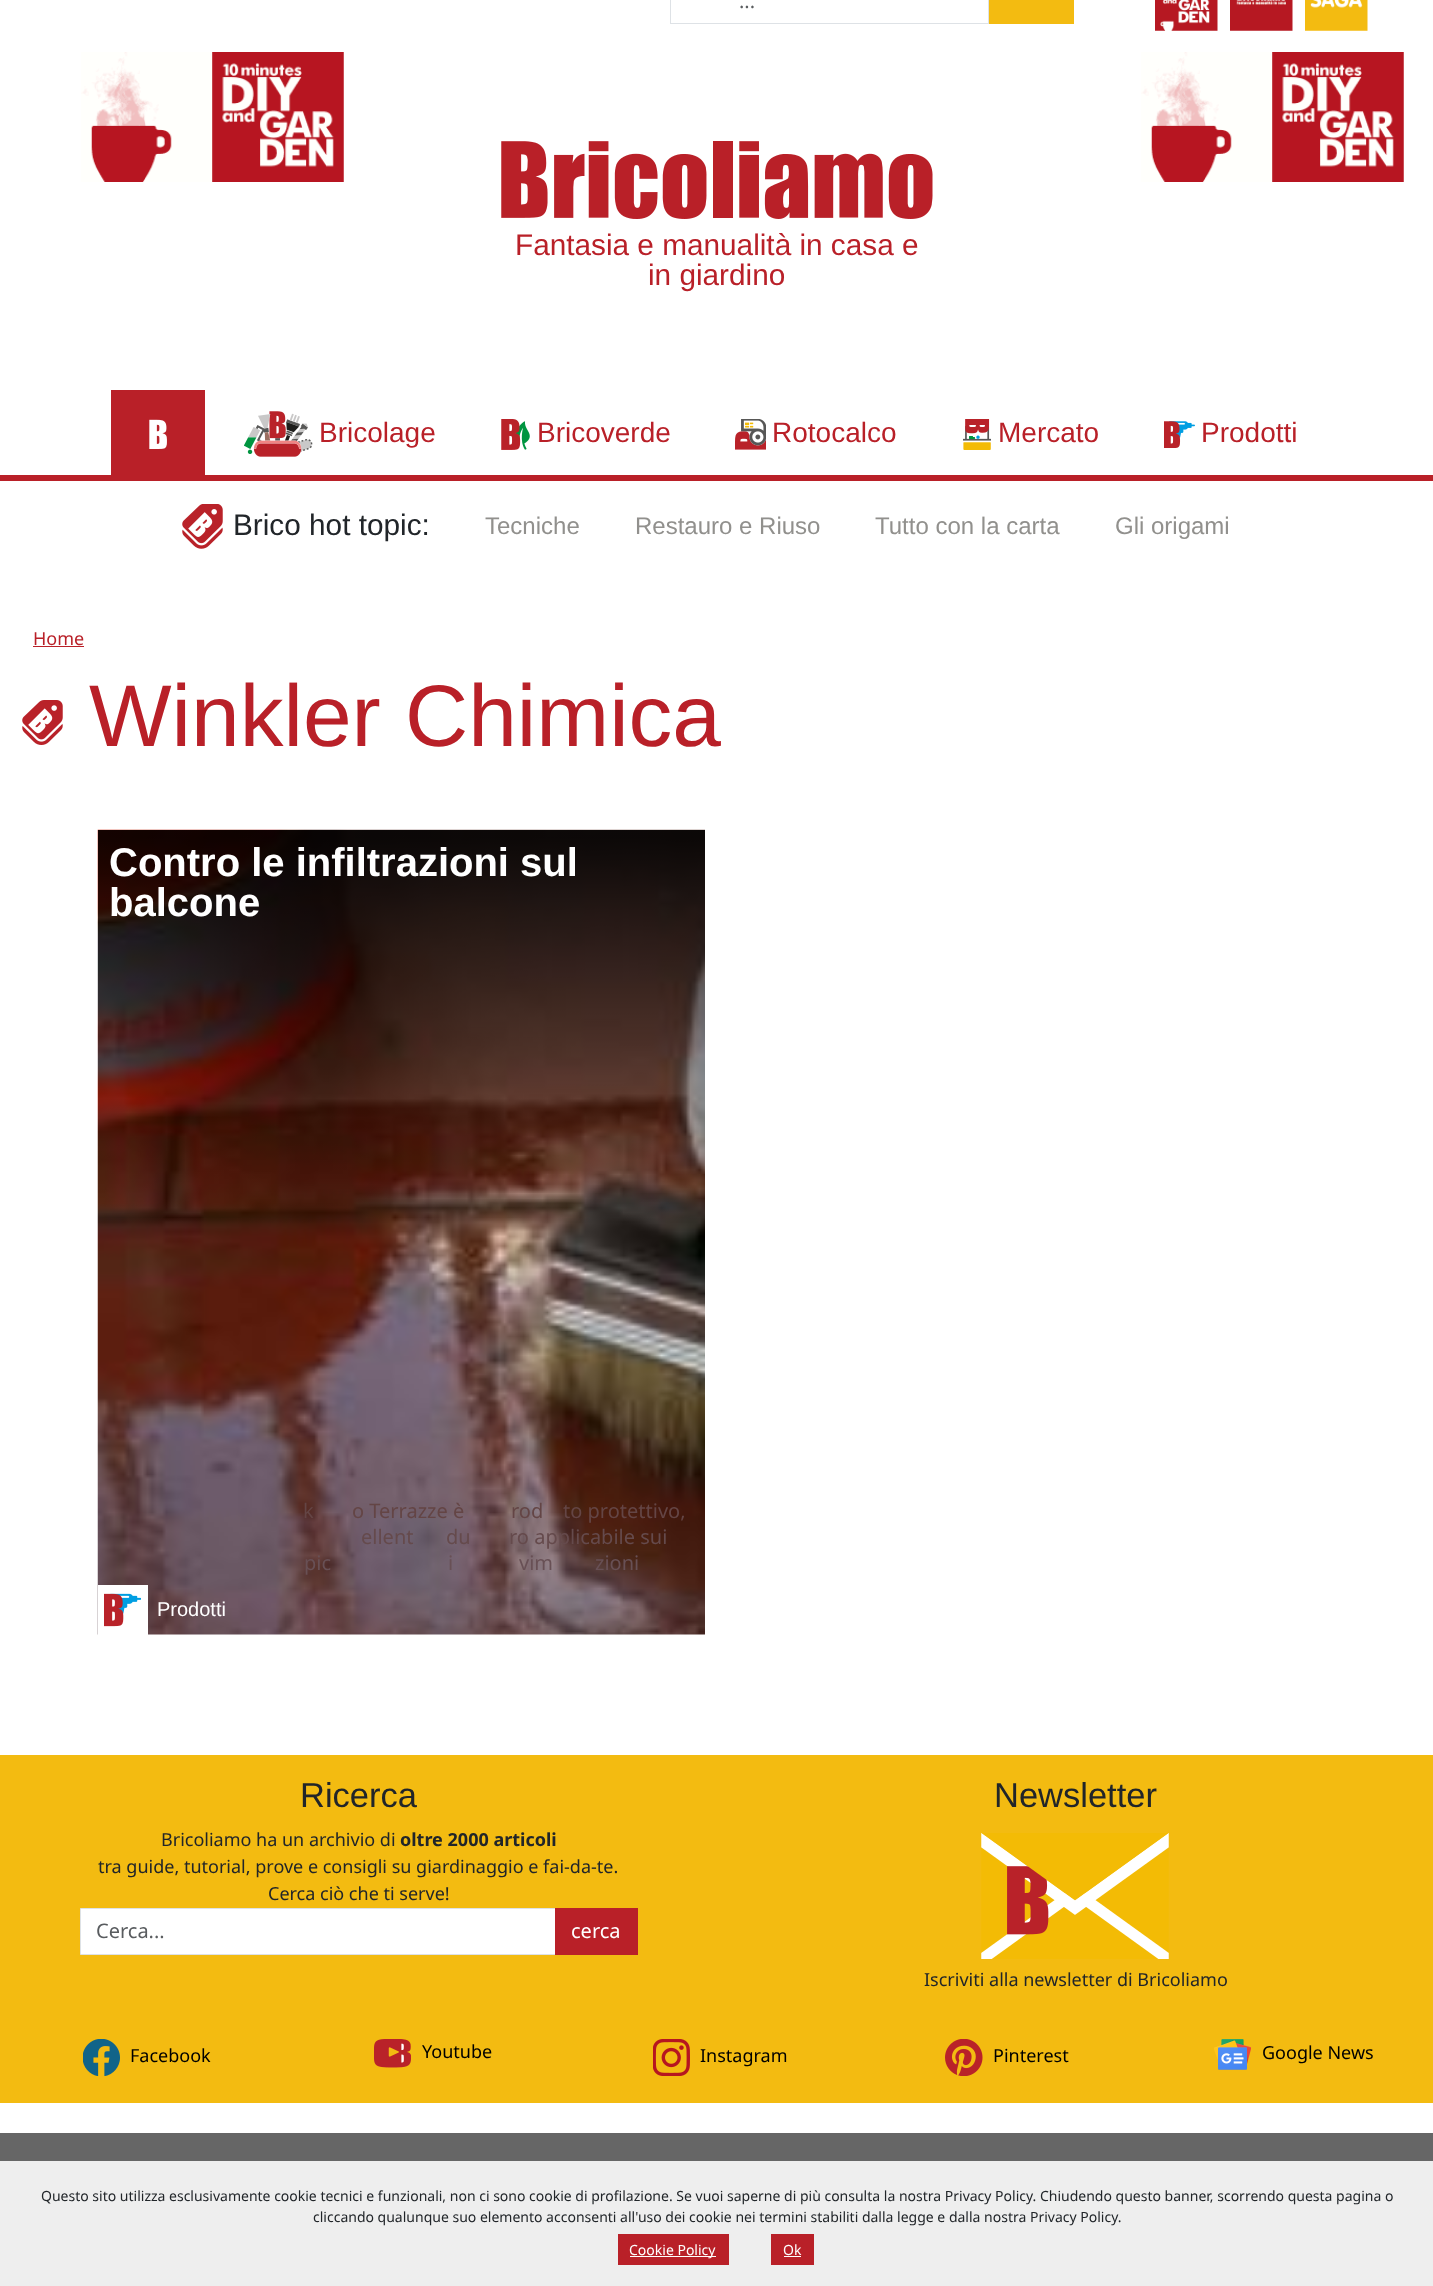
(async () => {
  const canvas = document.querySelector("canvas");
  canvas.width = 1433;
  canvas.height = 2286;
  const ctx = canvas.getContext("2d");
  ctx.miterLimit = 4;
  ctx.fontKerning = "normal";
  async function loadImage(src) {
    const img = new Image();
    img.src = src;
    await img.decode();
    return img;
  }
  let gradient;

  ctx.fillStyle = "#ffffff";
  ctx.fillRect(0, 0, 1433, 2286);
  ctx.strokeStyle = "#dee2e6";
  ctx.strokeRect(670.5, -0.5, 318, 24);
  ctx.fillStyle = "#f3bb11";
  ctx.fillRect(989, 0, 85, 24);
  ctx.drawImage(await loadImage("img/1.png"), 1155, 0, 63, 31);
  ctx.drawImage(await loadImage("img/2.png"), 1230, 0, 63, 31);
  ctx.drawImage(await loadImage("img/3.png"), 1305, 0, 63, 31);
  ctx.drawImage(await loadImage("img/4.png"), 81, 52, 263, 130);
  ctx.drawImage(await loadImage("img/4.png"), 1141, 52, 263, 130);
  ctx.drawImage(await loadImage("img/5.png"), 501, 141, 432, 78);
  ctx.fillStyle = "#b92028";
  ctx.fillRect(0, 475, 1433, 6);
  ctx.fillRect(111, 390, 94, 85);
  ctx.drawImage(await loadImage("img/6.png"), 149, 419, 18, 30);
  ctx.drawImage(await loadImage("img/7.png"), 244, 411, 69, 46);
  ctx.drawImage(await loadImage("img/8.png"), 501, 419, 29, 31);
  ctx.drawImage(await loadImage("img/9.png"), 735, 419, 31, 31);
  ctx.drawImage(await loadImage("img/10.png"), 963, 419, 28, 31);
  ctx.drawImage(await loadImage("img/11.png"), 1164, 421, 31, 27);
  ctx.drawImage(await loadImage("img/12.png"), 182, 504, 41, 45);
  ctx.fillRect(33, 646, 51, 1);
  ctx.drawImage(await loadImage("img/13.png"), 22, 700, 41, 45);
  ctx.drawImage(await loadImage("img/14.png"), 97, 829, 608, 806);
  gradient = ctx.createLinearGradient(401, 830, 401, 1635);
  gradient.addColorStop(0, "rgba(0, 0, 0, 0.9)");
  gradient.addColorStop(0.01, "rgba(0, 0, 0, 0.9)");
  gradient.addColorStop(0.12, "rgba(0, 0, 0, 0.7)");
  gradient.addColorStop(0.5, "rgba(0, 0, 0, 0)");
  gradient.addColorStop(1, "rgba(0, 0, 0, 0)");
  ctx.fillStyle = gradient;
  ctx.fillRect(98, 830, 607, 393);
  ctx.fillStyle = "#ffffff";
  ctx.fillRect(98, 1585, 50, 50);
  ctx.drawImage(await loadImage("img/15.png"), 104, 1593, 37, 34);
  ctx.fillStyle = "#f3bb11";
  ctx.fillRect(0, 1755, 1433, 258);
  ctx.fillStyle = "#ffffff";
  ctx.beginPath();
  ctx.rect(80.5, 1908.5, 475, 46);
  ctx.fill();
  ctx.stroke();
  ctx.fillStyle = "#b92028";
  ctx.fillRect(555, 1908, 83, 47);
  ctx.drawImage(await loadImage("img/16.png"), 981, 1833, 188, 126);
  ctx.fillStyle = "#f3bb11";
  ctx.fillRect(0, 2013, 1433, 90);
  ctx.drawImage(await loadImage("img/17.png"), 83, 2039, 37, 37);
  ctx.drawImage(await loadImage("img/18.png"), 374, 2039, 37, 29);
  ctx.drawImage(await loadImage("img/19.png"), 653, 2039, 37, 37);
  ctx.drawImage(await loadImage("img/20.png"), 945, 2039, 38, 37);
  ctx.drawImage(await loadImage("img/21.png"), 1214, 2039, 37, 31);
  for (const [x, y, w, h, color] of [
    [0, 2133, 1433, 28, "#666666"],
    [0, 2161, 1433, 125, "#eeeeee"],
    [618, 2234, 111, 31, "#b92028"],
    [630, 2256, 86, 1, "#ffffff"],
    [771, 2234, 43, 31, "#b92028"],
    [784, 2256, 17, 1, "#ffffff"],
  ]) {
    ctx.fillStyle = color;
    ctx.fillRect(x, y, w, h);
  }
  ctx.font = "20px Noto Sans";
  ctx.fillStyle = "#595c5f";
  ctx.fillText("...", 739, 8);
  ctx.font = "29.75px Liberation Sans";
  ctx.fillStyle = "#b92028";
  ctx.fillText("Fantasia e manualità in casa e", 515, 255);
  ctx.fillText("in giardino", 648, 285);
  ctx.font = "28px Liberation Sans";
  for (const [text, x, y] of [
    ["Bricolage", 319, 442],
    ["Bricoverde", 537, 442],
    ["Rotocalco", 772, 442],
    ["Mercato", 998, 442],
    ["Prodotti", 1201, 442],
  ]) {
    ctx.fillText(text, x, y);
  }
  ctx.font = "29.75px Liberation Sans";
  ctx.fillStyle = "#212529";
  ctx.fillText("Brico hot topic:", 233, 535);
  ctx.font = "24px Liberation Sans";
  ctx.fillStyle = "#91908d";
  for (const [text, x, y] of [
    ["Tecniche", 485, 534],
    ["Restauro e Riuso", 635, 534],
    ["Tutto con la carta", 875, 534],
    ["Gli origami", 1115, 534],
  ]) {
    ctx.fillText(text, x, y);
  }
  ctx.font = "18px Noto Sans";
  ctx.fillStyle = "#b92028";
  ctx.fillText("Home", 33, 645);
  ctx.font = "87.5px Liberation Sans";
  ctx.fillText("Winkler Chimica", 89, 746);
  ctx.font = "bold 40px Liberation Sans";
  ctx.fillStyle = "#ffffff";
  ctx.fillText("Contro le infiltrazioni sul", 109, 876);
  ctx.fillText("balcone", 109, 916);
  ctx.font = "20px Noto Sans";
  ctx.fillStyle = "#644545";
  for (const [text, x, y] of [
    ["k", 303, 1518],
    ["o Terrazze è", 352, 1518],
    ["rod", 511, 1518],
    ["to protettivo,", 563, 1518],
  ]) {
    ctx.fillText(text, x, y);
  }
  ctx.fillStyle = "#654a4c";
  for (const [text, x, y] of [
    ["ellent", 361, 1544],
    ["du", 446, 1544],
    ["ro applicabile sui", 509, 1544],
  ]) {
    ctx.fillText(text, x, y);
  }
  ctx.fillStyle = "#685055";
  for (const [text, x, y] of [
    ["pic", 304, 1570],
    ["i", 448, 1570],
    ["vim", 519, 1570],
    ["zioni", 595, 1570],
  ]) {
    ctx.fillText(text, x, y);
  }
  ctx.font = "20px Liberation Sans";
  ctx.fillStyle = "#ffffff";
  ctx.fillText("Prodotti", 157, 1616);
  ctx.font = "34.5px Liberation Sans";
  ctx.fillStyle = "#212529";
  ctx.fillText("Ricerca", 300, 1807);
  ctx.font = "18px Noto Sans";
  ctx.fillText("Bricoliamo ha un archivio di", 161, 1846);
  ctx.font = "bold 18px Noto Sans";
  ctx.fillText("oltre 2000 articoli", 400, 1846);
  ctx.font = "18px Noto Sans";
  ctx.fillText("tra guide, tutorial, prove e consigli su giardinaggio e fai-da-te.", 98, 1873);
  ctx.fillText("Cerca ciò che ti serve!", 268, 1900);
  ctx.font = "20px Noto Sans";
  ctx.fillStyle = "#595c5f";
  ctx.fillText("Cerca...", 96, 1938);
  ctx.fillStyle = "#ffffff";
  ctx.fillText("cerca", 571, 1938);
  ctx.font = "34.5px Liberation Sans";
  ctx.fillStyle = "#212529";
  ctx.fillText("Newsletter", 994, 1807);
  ctx.font = "18px Noto Sans";
  ctx.fillText("Iscriviti alla newsletter di Bricoliamo", 924, 1986);
  ctx.fillStyle = "#000000";
  for (const [text, x, y] of [
    ["Facebook", 130, 2062],
    ["Youtube", 422, 2058],
    ["Instagram", 700, 2062],
    ["Pinterest", 993, 2062],
    ["Google News", 1262, 2059],
  ]) {
    ctx.fillText(text, x, y);
  }
  ctx.font = "14px Noto Sans";
  ctx.fillStyle = "#212529";
  ctx.fillText("Questo sito utilizza esclusivamente cookie tecnici e funzionali, non ci sono cookie di profilazione. Se vuoi saperne di più consulta la nostra Privacy Policy. Chiudendo questo banner, scorrendo questa pagina o", 41, 2201);
  ctx.fillText("cliccando qualunque suo elemento acconsenti all'uso dei cookie nei termini stabiliti dalla legge e dalla nostra Privacy Policy.", 313, 2222);
  ctx.fillStyle = "#ffffff";
  ctx.fillText("Cookie Policy", 629, 2255);
  ctx.fillText("Ok", 783, 2255);
})();
